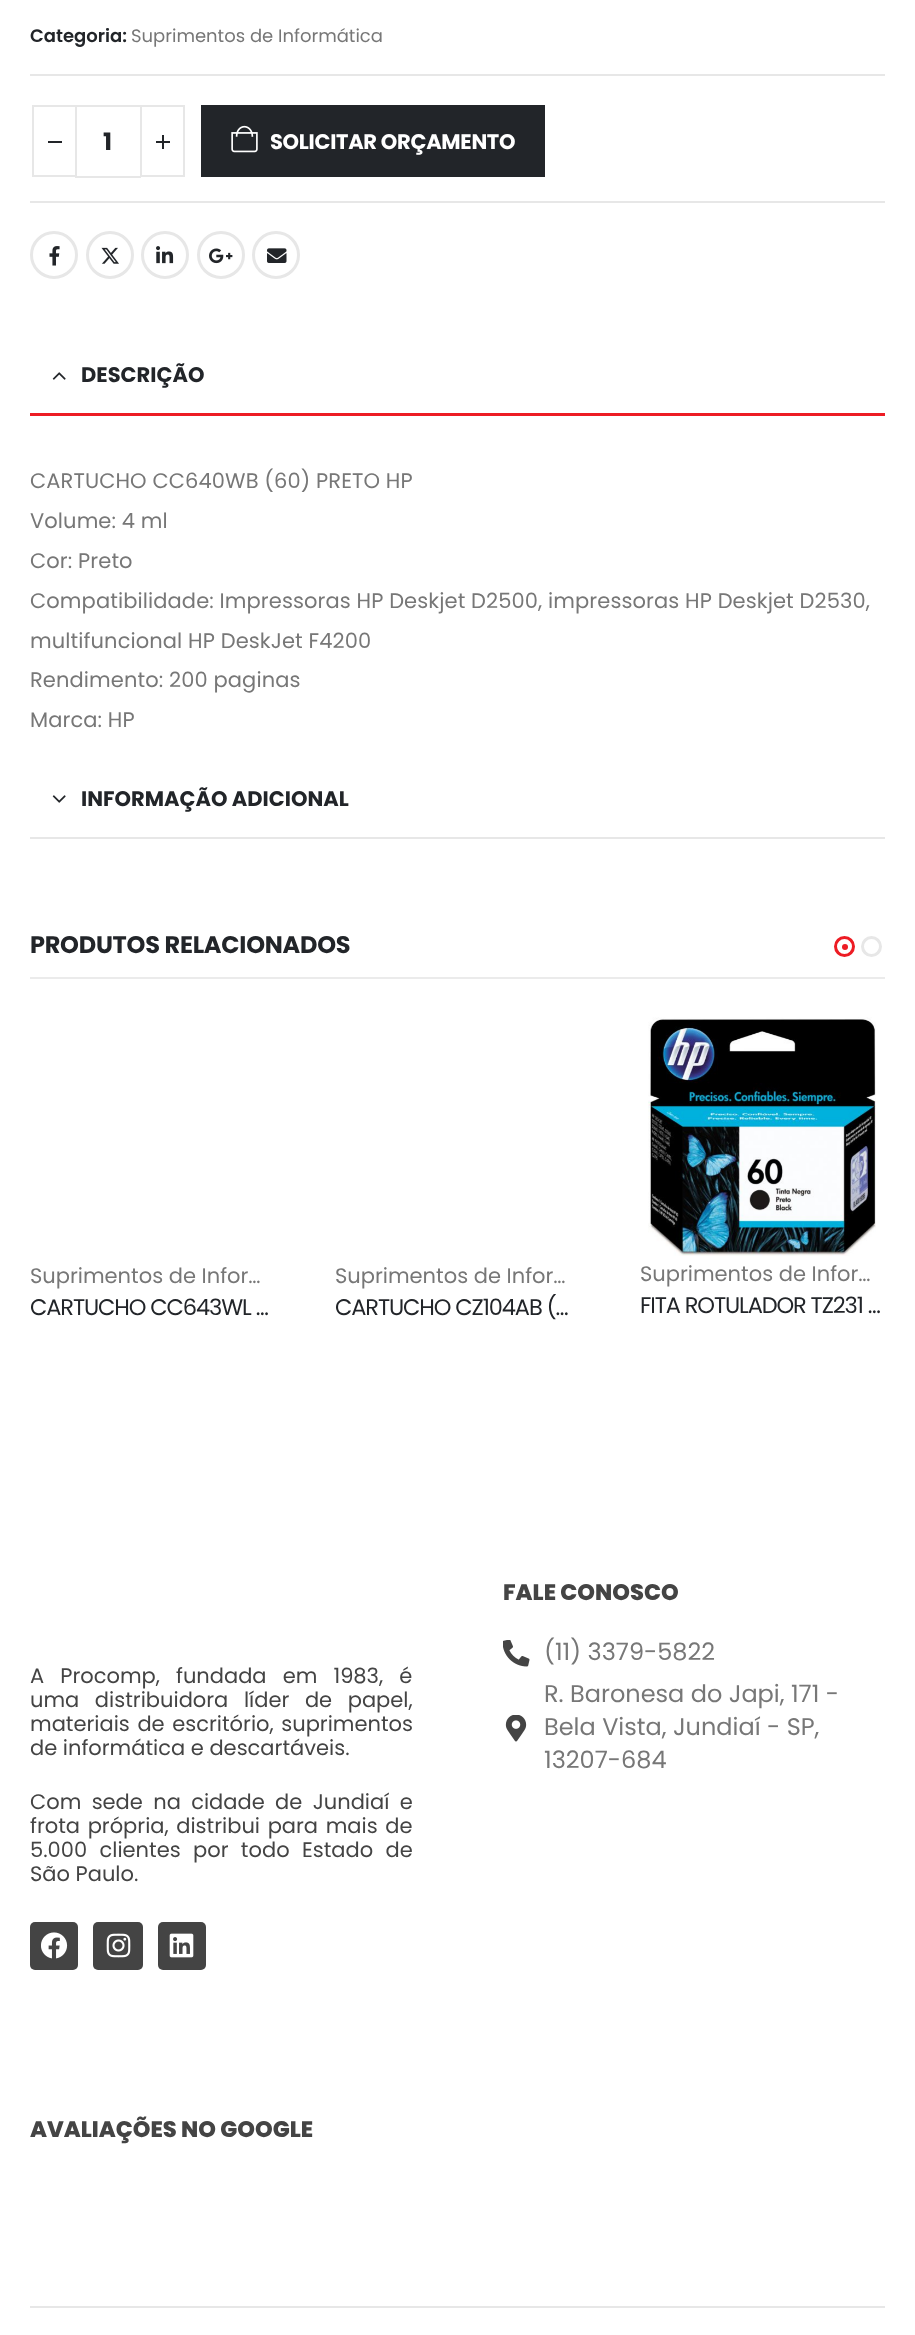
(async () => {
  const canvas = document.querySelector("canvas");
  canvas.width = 915;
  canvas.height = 2335;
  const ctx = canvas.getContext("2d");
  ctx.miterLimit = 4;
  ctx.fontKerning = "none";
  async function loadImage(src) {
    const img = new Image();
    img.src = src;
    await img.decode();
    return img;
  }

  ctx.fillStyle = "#ffffff";
  ctx.fillRect(0, 0, 915, 2335);
  for (const [x, y, w, h, color] of [
    [30, 74, 855, 2, "#e7e7e7"],
    [30, 201, 855, 2, "#e7e7e7"],
    [75, 105, 66, 2, "#e7e7e7"],
    [75, 176, 66, 2, "#e7e7e7"],
  ]) {
    ctx.fillStyle = color;
    ctx.fillRect(x, y, w, h);
  }
  ctx.strokeStyle = "#e7e7e7";
  ctx.lineWidth = 2;
  ctx.strokeRect(33, 106, 43, 70);
  ctx.fillStyle = "#222529";
  ctx.fillRect(48, 141, 14, 2);
  ctx.strokeRect(141, 106, 43, 70);
  for (const [x, y, w, h, color] of [
    [156, 141, 14, 2, "#222529"],
    [162, 135, 2, 14, "#222529"],
    [201, 105, 344, 72, "#222529"],
  ]) {
    ctx.fillStyle = color;
    ctx.fillRect(x, y, w, h);
  }
  ctx.drawImage(await loadImage("img/1.png"), 231, 125, 27, 28);
  ctx.beginPath();
  ctx.arc(54, 255, 22.5, 0, Math.PI * 2);
  ctx.lineWidth = 3;
  ctx.stroke();
  ctx.drawImage(await loadImage("img/2.png"), 49, 246, 11, 20);
  ctx.beginPath();
  ctx.arc(110, 255, 22.5, 0, Math.PI * 2);
  ctx.stroke();
  ctx.drawImage(await loadImage("img/3.png"), 101, 247, 18, 17);
  ctx.beginPath();
  ctx.arc(165, 255, 22.5, 0, Math.PI * 2);
  ctx.stroke();
  ctx.drawImage(await loadImage("img/4.png"), 156, 246, 18, 18);
  ctx.beginPath();
  ctx.arc(221, 255, 22.5, 0, Math.PI * 2);
  ctx.stroke();
  ctx.drawImage(await loadImage("img/5.png"), 209, 248, 24, 16);
  ctx.beginPath();
  ctx.arc(276, 255, 22.5, 0, Math.PI * 2);
  ctx.stroke();
  ctx.drawImage(await loadImage("img/6.png"), 267, 248, 20, 15);
  ctx.fillStyle = "#ed1c24";
  ctx.fillRect(30, 413, 855, 3);
  ctx.drawImage(await loadImage("img/7.png"), 52, 372, 14, 8);
  ctx.fillStyle = "#e7e7e7";
  ctx.fillRect(30, 837, 855, 2);
  ctx.drawImage(await loadImage("img/8.png"), 52, 795, 14, 8);
  ctx.fillStyle = "#ebebeb";
  ctx.fillRect(30, 977, 855, 2);
  ctx.beginPath();
  ctx.arc(844.5, 946.5, 9, 0, Math.PI * 2);
  ctx.strokeStyle = "#ed1c24";
  ctx.stroke();
  ctx.fillStyle = "#ed1c24";
  ctx.beginPath();
  ctx.arc(845, 947, 3, 0, Math.PI * 2);
  ctx.fill();
  ctx.beginPath();
  ctx.arc(871.5, 946.5, 9, 0, Math.PI * 2);
  ctx.strokeStyle = "#e7e7e7";
  ctx.stroke();
  ctx.drawImage(await loadImage("img/9.png"), 648, 1017, 228, 239);
  ctx.fillStyle = "#444444";
  ctx.beginPath();
  ctx.roundRect(30, 1922, 48, 48, 5);
  ctx.fill();
  ctx.drawImage(await loadImage("img/10.png"), 41, 1932, 27, 27);
  ctx.beginPath();
  ctx.roundRect(93, 1922, 50, 48, 5);
  ctx.fill();
  ctx.drawImage(await loadImage("img/11.png"), 106, 1933, 25, 25);
  ctx.beginPath();
  ctx.roundRect(158, 1922, 48, 48, 5);
  ctx.fill();
  ctx.drawImage(await loadImage("img/12.png"), 169, 1933, 25, 25);
  ctx.drawImage(await loadImage("img/13.png"), 503, 1640, 27, 27);
  ctx.drawImage(await loadImage("img/14.png"), 505, 1715, 22, 27);
  ctx.fillStyle = "#e7e7e7";
  ctx.fillRect(30, 2306, 855, 2);
  ctx.font = "600 18px Poppins";
  ctx.fillStyle = "#222529";
  ctx.fillText("Categoria:", 30, 42);
  ctx.font = "18px Poppins";
  ctx.fillStyle = "#777777";
  ctx.fillText("Suprimentos de Informática", 131, 42);
  ctx.font = "bold 24px Poppins";
  ctx.fillStyle = "#222529";
  ctx.fillText("1", 103, 150);
  ctx.letterSpacing = "-0.3px";
  ctx.font = "bold 21px Poppins";
  ctx.fillStyle = "#ffffff";
  ctx.fillText("SOLICITAR ORÇAMENTO", 270, 149);
  ctx.letterSpacing = "0px";
  ctx.fillStyle = "#222529";
  ctx.fillText("DESCRIÇÃO", 81, 382);
  ctx.letterSpacing = "0.1px";
  ctx.font = "21px Poppins";
  ctx.fillStyle = "#777777";
  for (const [text, x, y] of [
    ["CARTUCHO CC640WB (60) PRETO HP", 30, 488],
    ["Volume: 4 ml", 30, 528],
    ["Cor: Preto", 30, 568],
    ["Compatibilidade: Impressoras HP Deskjet D2500, impressoras HP Deskjet D2530,", 30, 608],
    ["multifuncional HP DeskJet F4200", 30, 648],
    ["Rendimento: 200 paginas", 30, 687],
    ["Marca: HP", 30, 727],
  ]) {
    ctx.fillText(text, x, y);
  }
  ctx.letterSpacing = "0px";
  ctx.font = "bold 21px Poppins";
  ctx.fillStyle = "#222529";
  ctx.fillText("INFORMAÇÃO ADICIONAL", 81, 806);
  ctx.letterSpacing = "-0.25px";
  ctx.font = "bold 24px Poppins";
  ctx.fillText("PRODUTOS RELACIONADOS", 30, 953);
  ctx.letterSpacing = "0px";
  ctx.font = "21px Poppins";
  ctx.fillStyle = "#777777";
  ctx.fillText("Suprimentos de Infor…", 30, 1283);
  ctx.letterSpacing = "-1.1px";
  ctx.font = "22.5px Poppins";
  ctx.fillStyle = "#222529";
  ctx.fillText("CARTUCHO CC643WL …", 30, 1315);
  ctx.letterSpacing = "0px";
  ctx.font = "21px Poppins";
  ctx.fillStyle = "#777777";
  ctx.fillText("Suprimentos de Infor…", 335, 1283);
  ctx.letterSpacing = "-1.1px";
  ctx.font = "22.5px Poppins";
  ctx.fillStyle = "#222529";
  ctx.fillText("CARTUCHO CZ104AB (…", 335, 1315);
  ctx.letterSpacing = "0px";
  ctx.font = "21px Poppins";
  ctx.fillStyle = "#777777";
  ctx.fillText("Suprimentos de Infor…", 640, 1281);
  ctx.letterSpacing = "-1.1px";
  ctx.font = "22.5px Poppins";
  ctx.fillStyle = "#222529";
  ctx.fillText("FITA ROTULADOR TZ231 …", 640, 1313);
  ctx.letterSpacing = "0px";
  ctx.wordSpacing = "10.5px";
  ctx.font = "21px Poppins";
  ctx.fillStyle = "#444444";
  ctx.fillText("A Procomp, fundada em 1983, é", 30, 1683);
  ctx.wordSpacing = "10px";
  ctx.fillText("uma distribuidora líder de papel,", 30, 1707);
  ctx.wordSpacing = "2px";
  ctx.fillText("materiais de escritório, suprimentos", 30, 1731);
  ctx.wordSpacing = "0px";
  ctx.fillText("de informática e descartáveis.", 30, 1755);
  ctx.wordSpacing = "4.75px";
  ctx.fillText("Com sede na cidade de Jundiaí e", 30, 1809);
  ctx.wordSpacing = "2px";
  ctx.fillText("frota própria, distribui para mais de", 30, 1833);
  ctx.wordSpacing = "6.75px";
  ctx.fillText("5.000 clientes por todo Estado de", 30, 1857);
  ctx.wordSpacing = "0px";
  ctx.fillText("São Paulo.", 30, 1881);
  ctx.font = "800 22.5px Poppins";
  ctx.fillText("FALE CONOSCO", 503, 1600);
  ctx.font = "24px Poppins";
  ctx.fillStyle = "#777777";
  for (const [text, x, y] of [
    ["(11) 3379-5822", 544, 1660],
    ["R. Baronesa do Japi, 171 -", 544, 1702],
    ["Bela Vista, Jundiaí - SP,", 544, 1735],
    ["13207-684", 544, 1768],
  ]) {
    ctx.fillText(text, x, y);
  }
  ctx.font = "800 22.5px Poppins";
  ctx.fillStyle = "#444444";
  ctx.fillText("AVALIAÇÕES NO GOOGLE", 30, 2137);
})();
